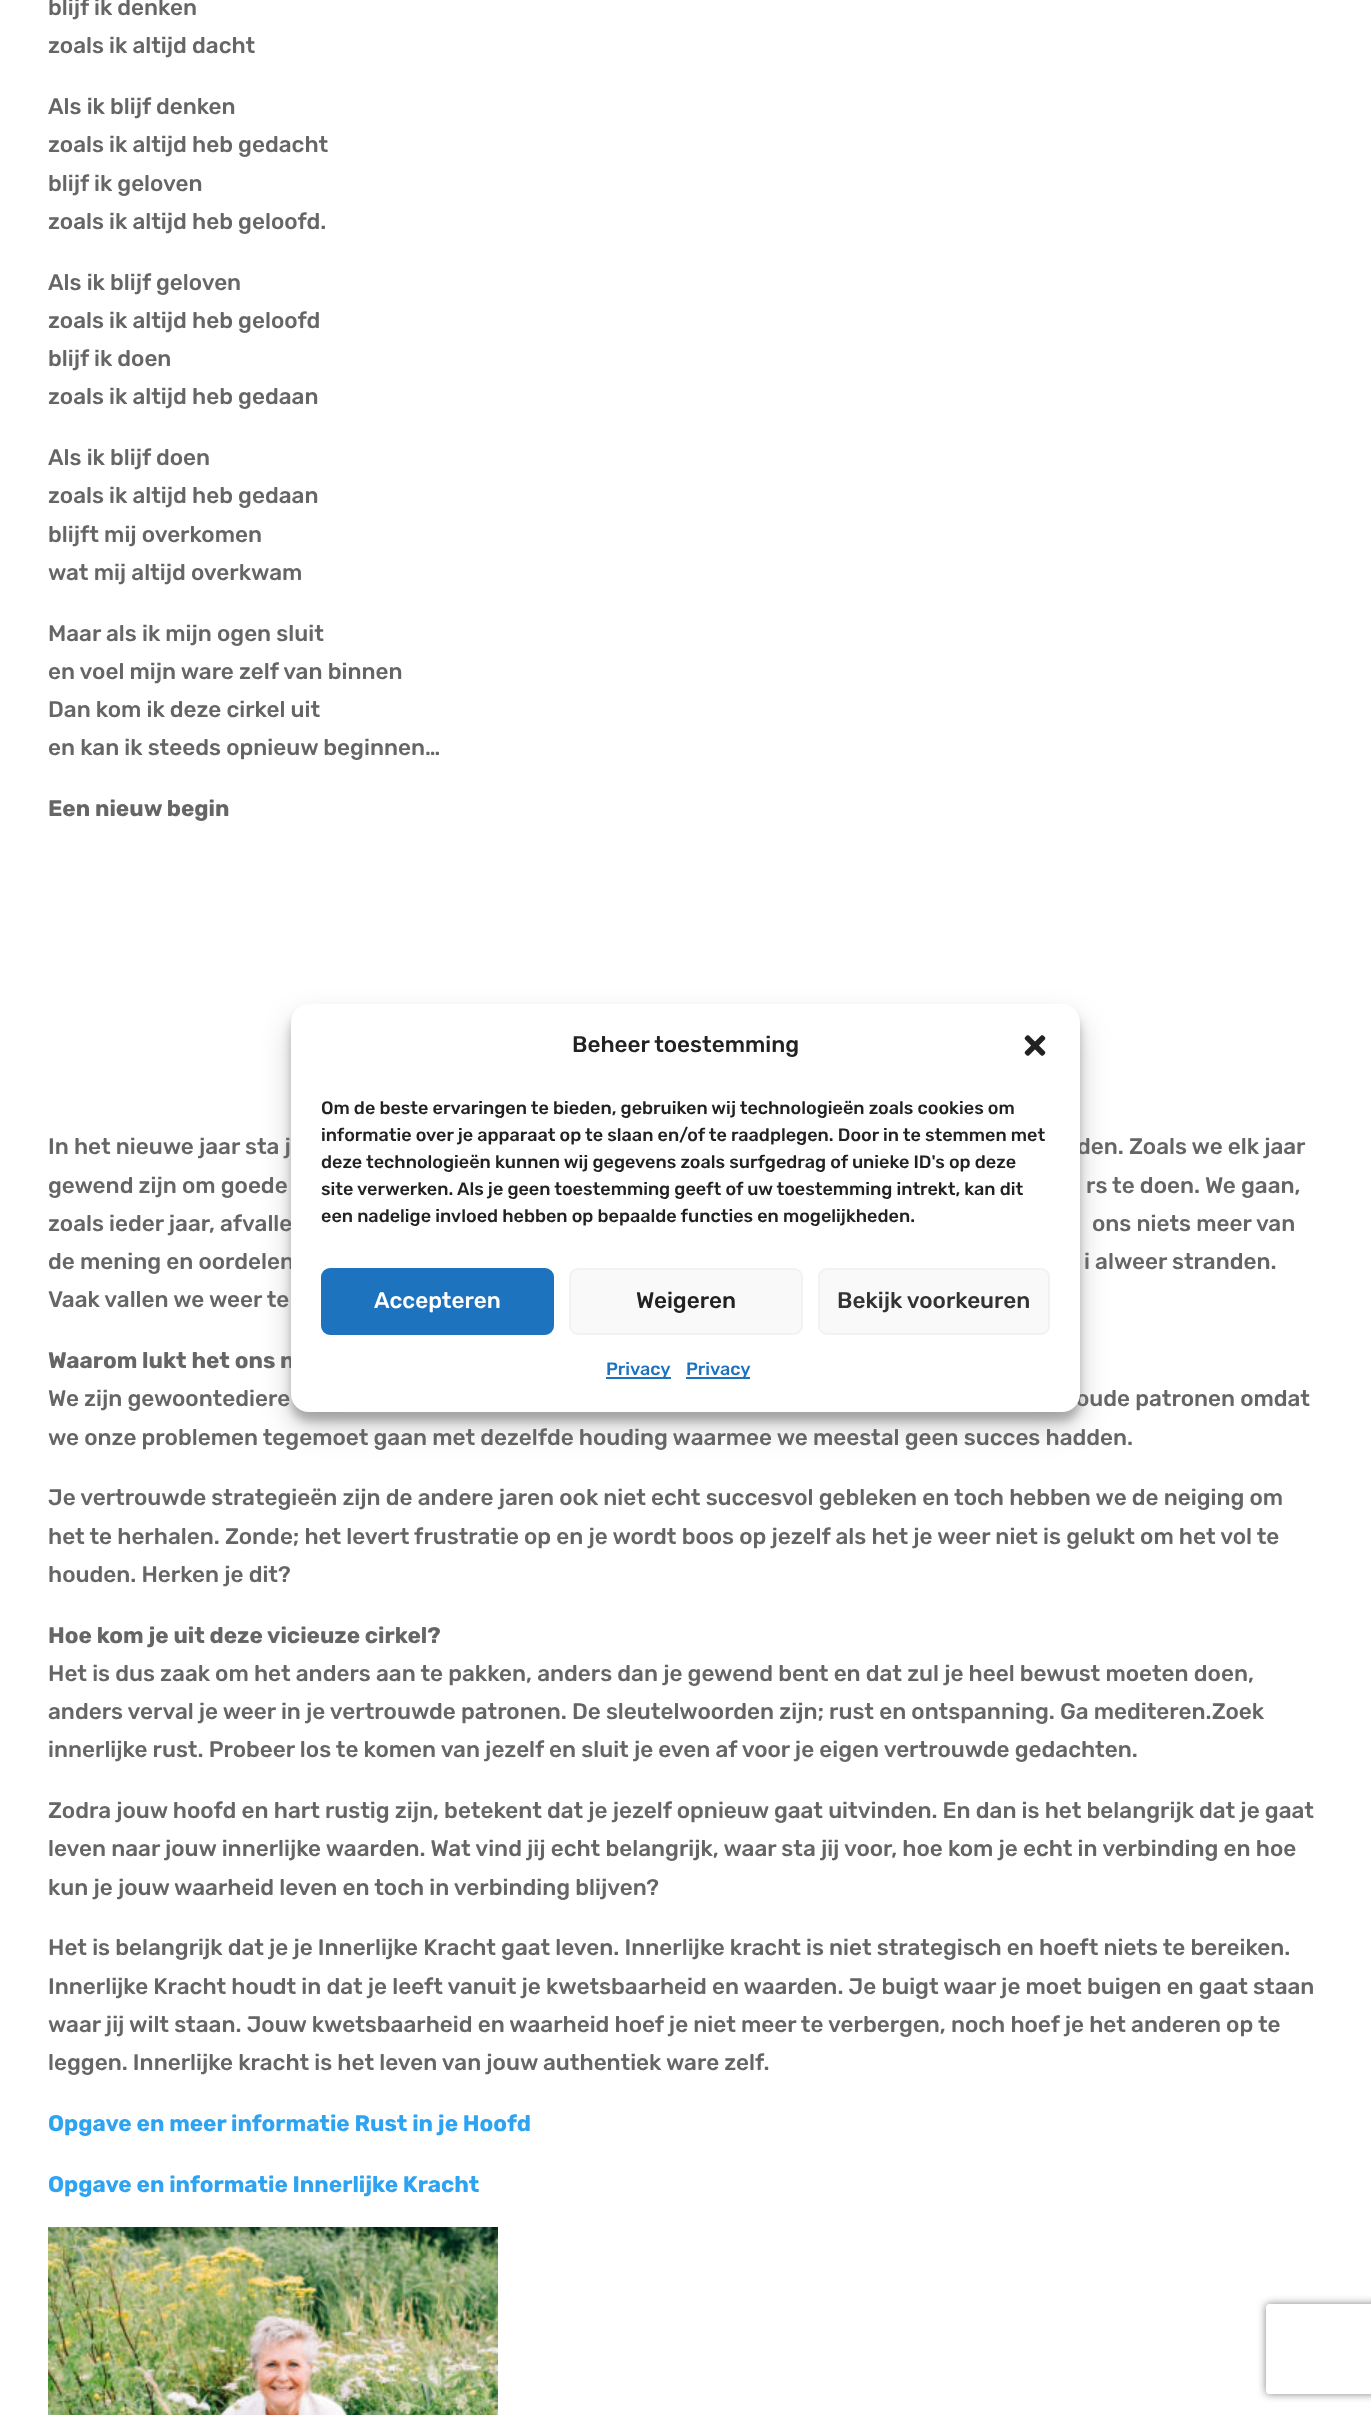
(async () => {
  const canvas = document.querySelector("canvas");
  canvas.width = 1371;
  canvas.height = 2415;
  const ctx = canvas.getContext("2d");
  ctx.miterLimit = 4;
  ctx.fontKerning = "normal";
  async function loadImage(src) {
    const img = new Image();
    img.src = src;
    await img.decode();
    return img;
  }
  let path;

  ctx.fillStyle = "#ffffff";
  ctx.fillRect(0, 0, 1371, 2415);
  ctx.drawImage(await loadImage("img/1.png"), 48, 2227, 450, 188);
  ctx.fillStyle = "rgba(0, 0, 0, 0.23)";
  ctx.filter = "blur(4.5px)";
  ctx.beginPath();
  ctx.roundRect(291, 1013, 789, 408, 18);
  ctx.fill();
  ctx.filter = "none";
  ctx.fillStyle = "rgba(0, 0, 0, 0.19)";
  ctx.filter = "blur(15px)";
  ctx.beginPath();
  ctx.roundRect(291, 1019, 789, 408, 18);
  ctx.fill();
  ctx.filter = "none";
  ctx.save();
  path = new Path2D("M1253 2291H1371V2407H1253ZM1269 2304H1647C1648.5 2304 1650 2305.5 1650 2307V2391C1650 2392.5 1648.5 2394 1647 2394H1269C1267.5 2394 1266 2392.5 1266 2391V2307C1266 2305.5 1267.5 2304 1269 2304Z");
  ctx.clip(path, "evenodd");
  ctx.fillStyle = "#808080";
  ctx.filter = "blur(4px)";
  ctx.beginPath();
  ctx.roundRect(1266, 2304, 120, 90, 3);
  ctx.fill();
  ctx.filter = "none";
  ctx.restore();
  ctx.font = "300 22.5px Rubik";
  ctx.fillStyle = "#666666";
  for (const [text, x, y] of [
    ["blijf ik denken", 48, 15],
    ["zoals ik altijd dacht", 48, 53],
    ["Als ik blijf denken", 48, 114],
    ["zoals ik altijd heb gedacht", 48, 152],
    ["blijf ik geloven", 48, 191],
    ["zoals ik altijd heb geloofd.", 48, 229],
    ["Als ik blijf geloven", 48, 290],
    ["zoals ik altijd heb geloofd", 48, 328],
    ["blijf ik doen", 48, 366],
    ["zoals ik altijd heb gedaan", 48, 404],
    ["Als ik blijf doen", 48, 465],
    ["zoals ik altijd heb gedaan", 48, 503],
    ["blijft mij overkomen", 48, 542],
    ["wat mij altijd overkwam", 48, 580],
    ["Maar als ik mijn ogen sluit", 48, 641],
    ["en voel mijn ware zelf van binnen", 48, 679],
    ["Dan kom ik deze cirkel uit", 48, 717],
    ["en kan ik steeds opnieuw beginnen…", 48, 755],
  ]) {
    ctx.fillText(text, x, y);
  }
  ctx.font = "300 22.5px 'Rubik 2'";
  ctx.fillText("Een nieuw begin", 48, 816);
  ctx.font = "300 22.5px Rubik";
  for (const [text, x, y] of [
    ["In het nieuwe jaar sta j", 48, 1154],
    ["den. Zoals we elk jaar", 1077, 1154],
    ["gewend zijn om goede", 48, 1193],
    ["rs te doen. We gaan,", 1086, 1193],
    ["zoals ieder jaar, afvalle", 48, 1231],
    ["ons niets meer van", 1092, 1231],
    ["de mening en oordelen", 48, 1269],
    ["i alweer stranden.", 1084, 1269],
    ["Vaak vallen we weer te", 48, 1307],
  ]) {
    ctx.fillText(text, x, y);
  }
  ctx.font = "300 22.5px 'Rubik 2'";
  ctx.fillText("Waarom lukt het ons n", 48, 1368);
  ctx.font = "300 22.5px Rubik";
  for (const [text, x, y] of [
    ["We zijn gewoontediere", 48, 1406],
    ["oude patronen omdat", 1076, 1406],
    ["we onze problemen tegemoet gaan met dezelfde houding waarmee we meestal geen succes hadden.", 48, 1445],
    ["Je vertrouwde strategieën zijn de andere jaren ook niet echt succesvol gebleken en toch hebben we de neiging om", 48, 1505],
    ["het te herhalen. Zonde; het levert frustratie op en je wordt boos op jezelf als het je weer niet is gelukt om het vol te", 48, 1544],
    ["houden. Herken je dit?", 48, 1582],
  ]) {
    ctx.fillText(text, x, y);
  }
  ctx.font = "300 22.5px 'Rubik 2'";
  ctx.fillText("Hoe kom je uit deze vicieuze cirkel?", 48, 1643);
  ctx.font = "300 22.5px Rubik";
  for (const [text, x, y] of [
    ["Het is dus zaak om het anders aan te pakken, anders dan je gewend bent en dat zul je heel bewust moeten doen,", 48, 1681],
    ["anders verval je weer in je vertrouwde patronen. De sleutelwoorden zijn; rust en ontspanning. Ga mediteren.Zoek", 48, 1719],
    ["innerlijke rust. Probeer los te komen van jezelf en sluit je even af voor je eigen vertrouwde gedachten.", 48, 1757],
    ["Zodra jouw hoofd en hart rustig zijn, betekent dat je jezelf opnieuw gaat uitvinden. En dan is het belangrijk dat je gaat", 48, 1818],
    ["leven naar jouw innerlijke waarden. Wat vind jij echt belangrijk, waar sta jij voor, hoe kom je echt in verbinding en hoe", 48, 1856],
    ["kun je jouw waarheid leven en toch in verbinding blijven?", 48, 1895],
    ["Het is belangrijk dat je je Innerlijke Kracht gaat leven. Innerlijke kracht is niet strategisch en hoeft niets te bereiken.", 48, 1955],
    ["Innerlijke Kracht houdt in dat je leeft vanuit je kwetsbaarheid en waarden. Je buigt waar je moet buigen en gaat staan", 48, 1994],
    ["waar jij wilt staan. Jouw kwetsbaarheid en waarheid hoef je niet meer te verbergen, noch hoef je het anderen op te", 48, 2032],
    ["leggen. Innerlijke kracht is het leven van jouw authentiek ware zelf.", 48, 2070],
  ]) {
    ctx.fillText(text, x, y);
  }
  ctx.font = "300 22.5px 'Rubik 2'";
  ctx.fillStyle = "#2ea3f2";
  ctx.fillText("Opgave en meer informatie Rust in je Hoofd", 48, 2131);
  ctx.fillText("Opgave en informatie Innerlijke Kracht", 48, 2192);
  ctx.fillStyle = "#ffffff";
  ctx.beginPath();
  ctx.roundRect(291, 1004, 789, 408, 18);
  ctx.fill();
  ctx.font = "300 22.5px Rubik";
  ctx.fillStyle = "#222222";
  ctx.fillText("Beheer toestemming", 572, 1052);
  ctx.drawImage(await loadImage("img/2.png"), 1024, 1035, 22, 21);
  ctx.font = "300 18px Rubik";
  for (const [text, x, y] of [
    ["Om de beste ervaringen te bieden, gebruiken wij technologieën zoals cookies om", 321, 1114],
    ["informatie over je apparaat op te slaan en/of te raadplegen. Door in te stemmen met", 321, 1141],
    ["deze technologieën kunnen wij gegevens zoals surfgedrag of unieke ID's op deze", 321, 1168],
    ["site verwerken. Als je geen toestemming geeft of uw toestemming intrekt, kan dit", 321, 1195],
    ["een nadelige invloed hebben op bepaalde functies en mogelijkheden.", 321, 1222],
  ]) {
    ctx.fillText(text, x, y);
  }
  ctx.fillStyle = "#1e73be";
  ctx.beginPath();
  ctx.roundRect(322, 1269, 231, 65, 8);
  ctx.fill();
  ctx.strokeStyle = "#1e73be";
  ctx.lineWidth = 2;
  ctx.stroke();
  ctx.font = "300 22.5px Rubik";
  ctx.fillStyle = "#ffffff";
  ctx.fillText("Accepteren", 374, 1308);
  ctx.fillStyle = "#f9f9f9";
  ctx.beginPath();
  ctx.roundRect(570, 1269, 232, 65, 8);
  ctx.fill();
  ctx.strokeStyle = "#f2f2f2";
  ctx.stroke();
  ctx.fillStyle = "#222222";
  ctx.fillText("Weigeren", 636, 1308);
  ctx.fillStyle = "#f9f9f9";
  ctx.beginPath();
  ctx.roundRect(819, 1269, 230, 65, 8);
  ctx.fill();
  ctx.stroke();
  ctx.fillStyle = "#333333";
  ctx.fillText("Bekijk voorkeuren", 837, 1308);
  ctx.fillStyle = "#1e73be";
  ctx.fillRect(606, 1377, 65, 2);
  ctx.font = "300 18px Rubik";
  ctx.fillText("Privacy", 606, 1375);
  ctx.fillRect(686, 1377, 64, 2);
  ctx.fillText("Privacy", 686, 1375);
})();
